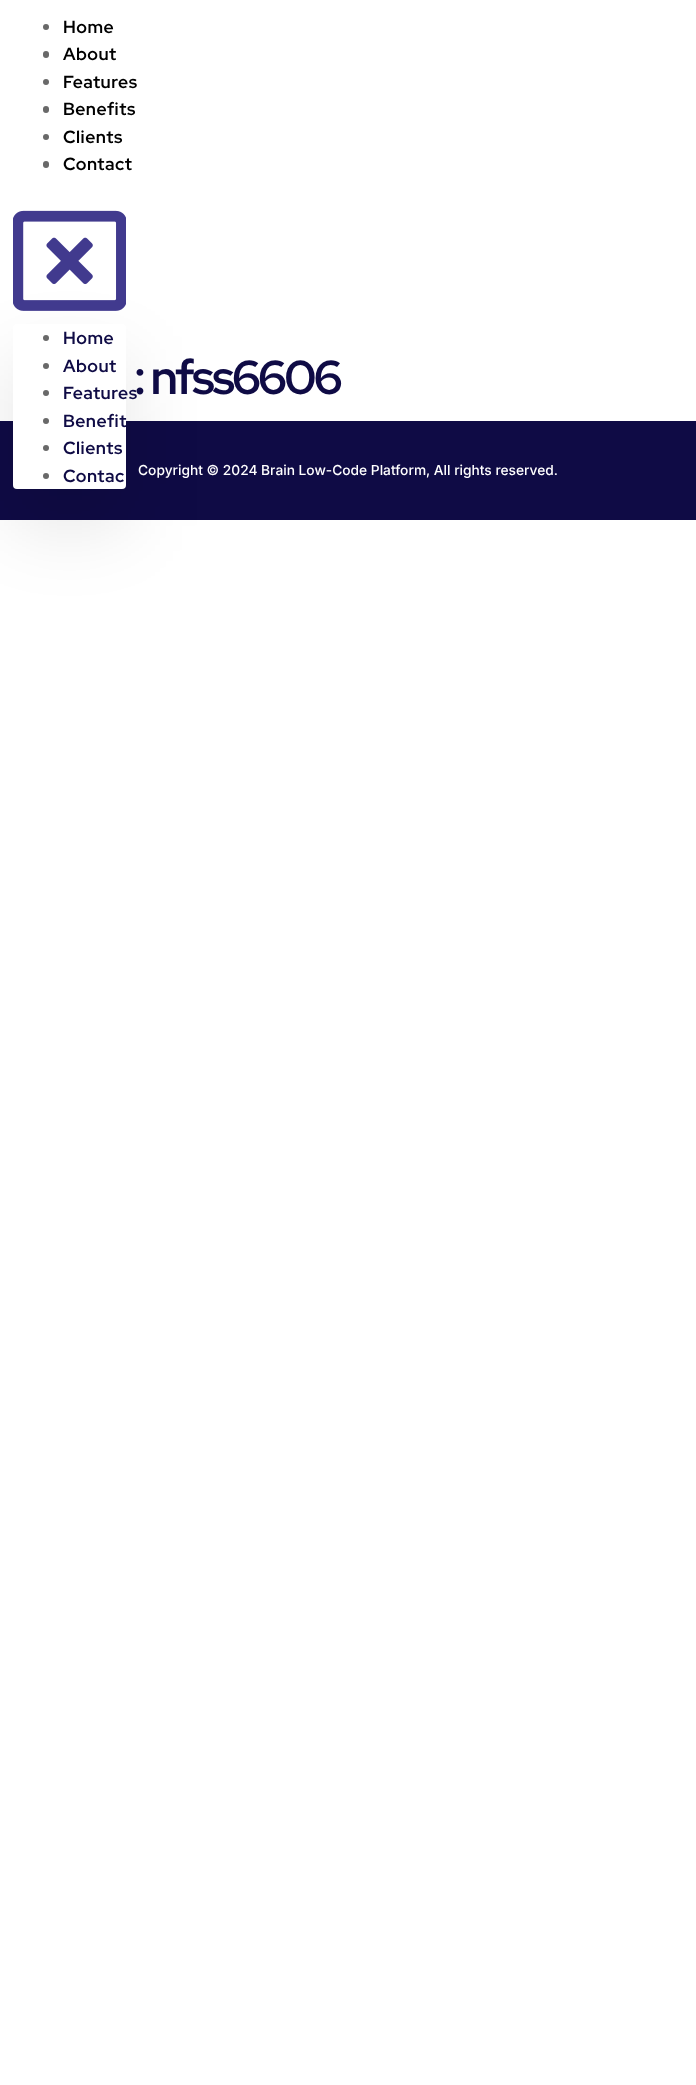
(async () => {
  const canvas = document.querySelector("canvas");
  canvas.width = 696;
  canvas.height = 2085;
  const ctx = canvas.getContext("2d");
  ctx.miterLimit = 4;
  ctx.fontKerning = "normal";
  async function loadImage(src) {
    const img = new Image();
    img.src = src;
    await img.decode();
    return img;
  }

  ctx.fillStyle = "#ffffff";
  ctx.fillRect(0, 0, 696, 2085);
  ctx.fillStyle = "#696969";
  ctx.beginPath();
  ctx.arc(46, 27, 3, 0, Math.PI * 2);
  ctx.fill();
  ctx.beginPath();
  ctx.roundRect(43, 51, 6, 7, 3);
  ctx.fill();
  ctx.beginPath();
  ctx.arc(46, 82, 3, 0, Math.PI * 2);
  ctx.fill();
  ctx.beginPath();
  ctx.roundRect(43, 106, 6, 7, 3);
  ctx.fill();
  ctx.beginPath();
  ctx.arc(46, 137, 3, 0, Math.PI * 2);
  ctx.fill();
  ctx.beginPath();
  ctx.roundRect(43, 161, 6, 7, 3);
  ctx.fill();
  ctx.fillStyle = "#0f0b45";
  ctx.fillRect(0, 421, 696, 99);
  ctx.fillStyle = "rgba(0, 0, 0, 0.1)";
  ctx.filter = "blur(37.5px)";
  ctx.beginPath();
  ctx.roundRect(13, 361, 113, 165, 4);
  ctx.fill();
  ctx.filter = "none";
  ctx.drawImage(await loadImage("img/1.png"), 13, 210, 113, 101);
  ctx.fillStyle = "#ffffff";
  ctx.beginPath();
  ctx.roundRect(13, 324, 113, 165, 4);
  ctx.fill();
  ctx.fillStyle = "#696969";
  ctx.beginPath();
  ctx.arc(46, 338, 3, 0, Math.PI * 2);
  ctx.fill();
  ctx.beginPath();
  ctx.arc(46, 366, 3, 0, Math.PI * 2);
  ctx.fill();
  ctx.beginPath();
  ctx.arc(46, 393, 3, 0, Math.PI * 2);
  ctx.fill();
  ctx.beginPath();
  ctx.arc(46, 421, 3, 0, Math.PI * 2);
  ctx.fill();
  ctx.beginPath();
  ctx.arc(46, 448, 3, 0, Math.PI * 2);
  ctx.fill();
  ctx.beginPath();
  ctx.arc(46, 476, 3, 0, Math.PI * 2);
  ctx.fill();
  ctx.letterSpacing = "0.5px";
  ctx.font = "bold 17.5px Red Hat Display";
  ctx.fillStyle = "#000000";
  for (const [text, x, y] of [
    ["Home", 63, 33],
    ["About", 63, 60],
    ["Features", 63, 88],
    ["Benefits", 63, 115],
    ["Clients", 63, 143],
    ["Contact", 63, 170],
  ]) {
    ctx.fillText(text, x, y);
  }
  ctx.fillStyle = "#0f0b45";
  for (const [text, x, y] of [
    ["Home", 63, 344],
    ["About", 63, 372],
    ["Benefit", 63, 427],
    ["Clients", 63, 454],
    ["Contac", 63, 482],
  ]) {
    ctx.fillText(text, x, y);
  }
  ctx.letterSpacing = "-2.5px";
  ctx.font = "bold 47.5px Red Hat Display";
  ctx.fillText(": nfss6606", 134, 394);
  ctx.letterSpacing = "0.5px";
  ctx.font = "bold 17.5px Red Hat Display";
  ctx.fillText("Features", 63, 399);
  ctx.letterSpacing = "0px";
  ctx.font = "500 13.75px Inter";
  ctx.fillStyle = "#ffffff";
  ctx.fillText("Copyright © 2024 Brain Low-Code Platform, All rights reserved.", 138, 475);
})();
